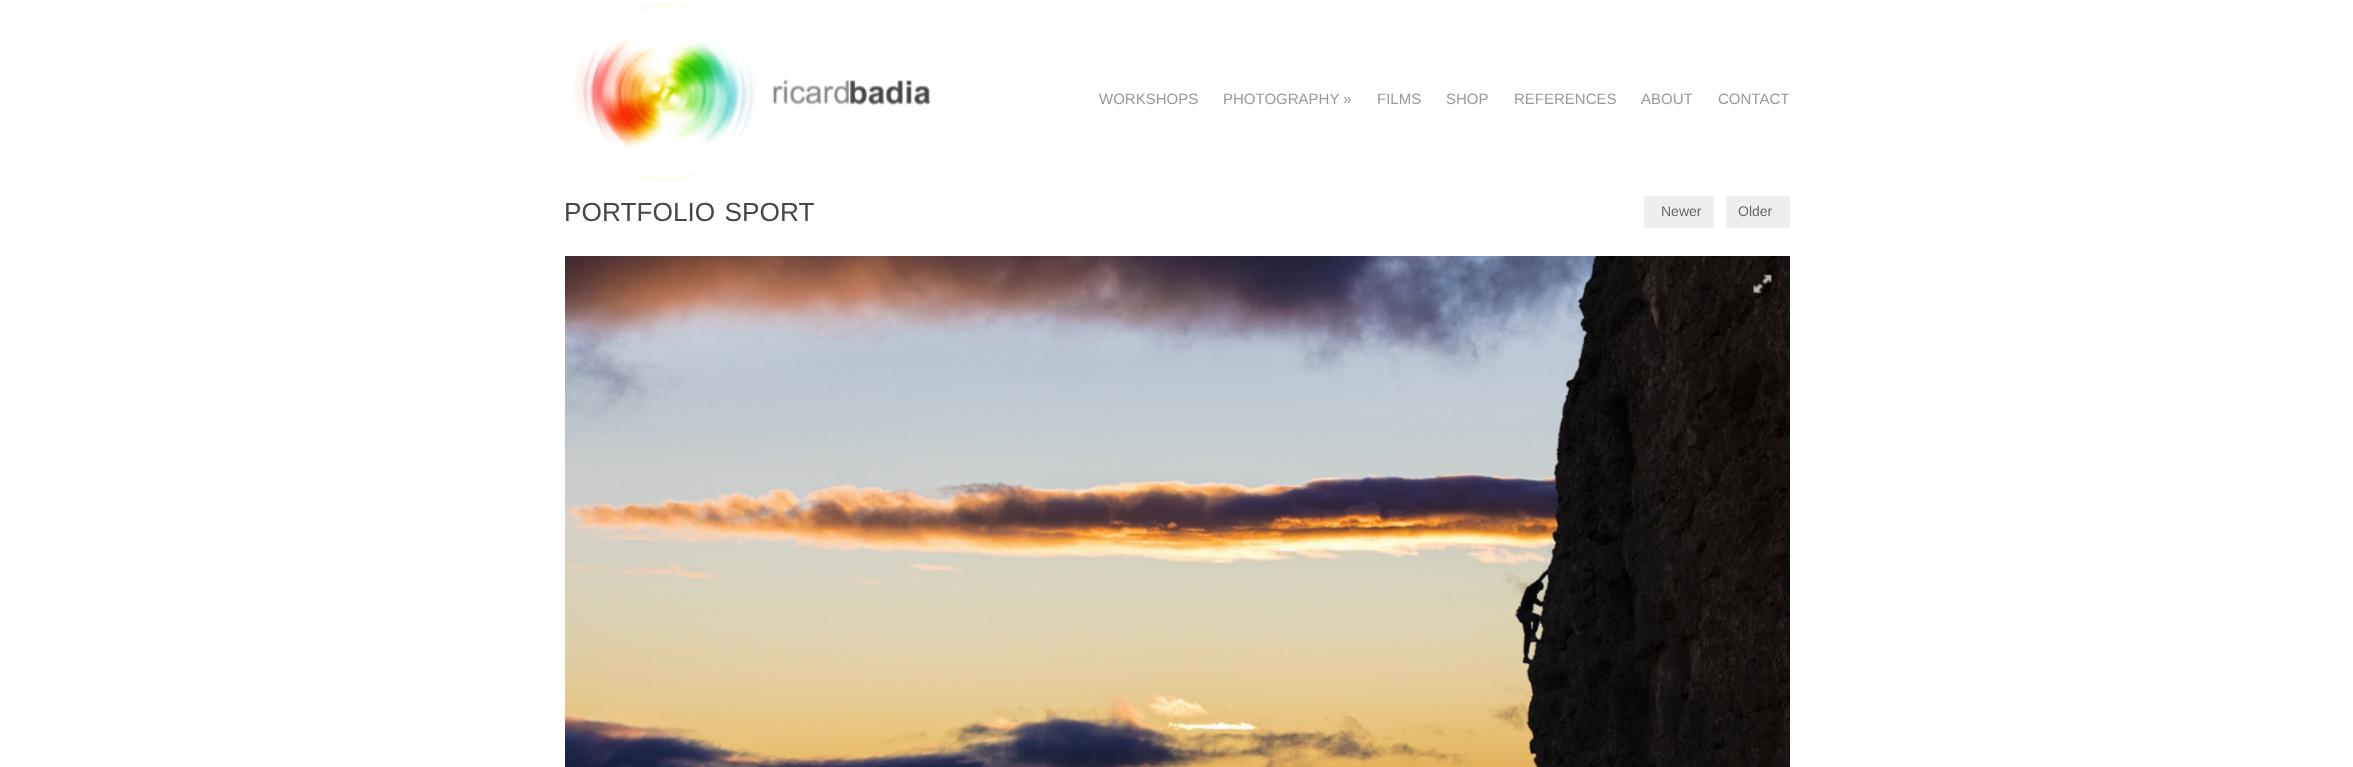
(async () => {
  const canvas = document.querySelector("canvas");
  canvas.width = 2353;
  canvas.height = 767;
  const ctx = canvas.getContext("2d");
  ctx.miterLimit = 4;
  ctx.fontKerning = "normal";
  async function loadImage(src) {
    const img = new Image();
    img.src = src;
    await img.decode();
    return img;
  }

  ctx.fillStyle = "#ffffff";
  ctx.fillRect(0, 0, 2353, 767);
  ctx.drawImage(await loadImage("img/1.png"), 573, 2, 358, 180);
  ctx.fillStyle = "#eeeeee";
  ctx.fillRect(1644, 196, 70, 32);
  ctx.fillRect(1726, 196, 64, 32);
  ctx.drawImage(await loadImage("img/2.png"), 565, 256, 1225, 511);
  ctx.drawImage(await loadImage("img/3.png"), 1752, 274, 21, 20);
  ctx.font = "15px Liberation Sans";
  ctx.fillStyle = "#999999";
  for (const [text, x, y] of [
    ["WORKSHOPS", 1099, 104],
    ["PHOTOGRAPHY »", 1223, 104],
    ["FILMS", 1377, 104],
    ["SHOP", 1446, 104],
    ["REFERENCES", 1514, 104],
    ["ABOUT", 1641, 104],
    ["CONTACT", 1718, 104],
  ]) {
    ctx.fillText(text, x, y);
  }
  ctx.wordSpacing = "2px";
  ctx.font = "26.25px Liberation Sans";
  ctx.fillStyle = "#484647";
  ctx.fillText("PORTFOLIO SPORT", 564, 221);
  ctx.wordSpacing = "0px";
  ctx.font = "14px Liberation Sans";
  ctx.fillStyle = "#666666";
  ctx.fillText("Newer", 1661, 216);
  ctx.fillText("Older", 1738, 216);
})();
